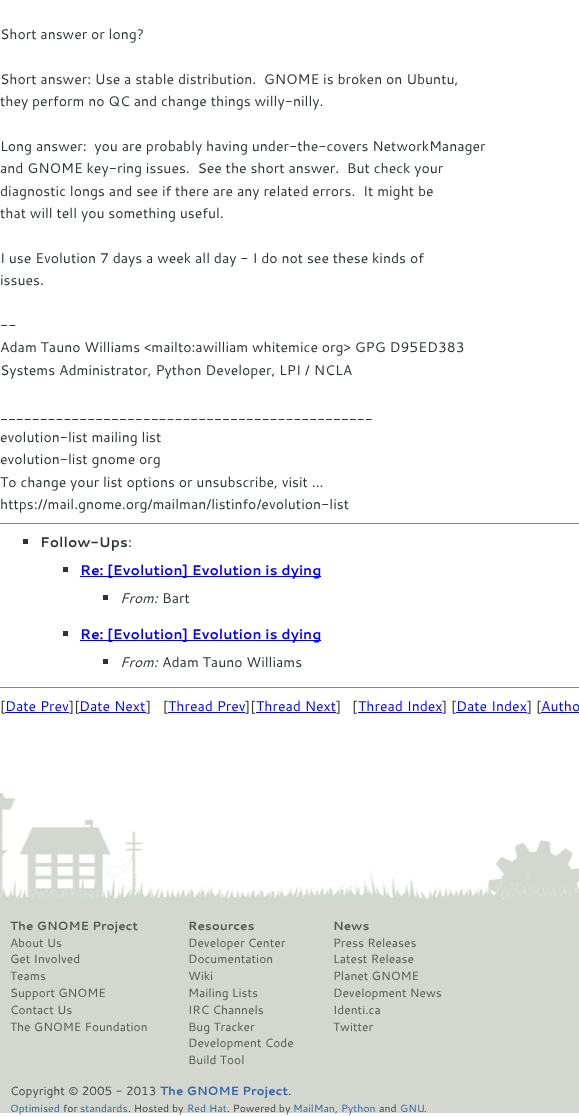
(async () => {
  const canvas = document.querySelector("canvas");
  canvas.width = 579;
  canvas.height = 1116;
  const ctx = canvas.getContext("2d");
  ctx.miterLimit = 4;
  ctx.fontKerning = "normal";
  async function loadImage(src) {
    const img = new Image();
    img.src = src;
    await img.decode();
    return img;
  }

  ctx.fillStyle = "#ffffff";
  ctx.fillRect(0, 0, 579, 1116);
  for (const [x, y, w, h, color] of [
    [0, 523, 579, 1, "#888888"],
    [23, 539, 5, 5, "#2e3436"],
    [63, 567, 5, 5, "#2e3436"],
    [80, 576, 241, 1, "#0000ff"],
    [103, 595, 5, 5, "#2e3436"],
    [63, 631, 5, 5, "#2e3436"],
    [80, 640, 241, 1, "#0000ff"],
    [103, 659, 5, 5, "#2e3436"],
    [0, 687, 579, 1, "#888888"],
    [5, 712, 64, 1, "#0000ff"],
    [168, 712, 77, 1, "#0000ff"],
    [256, 712, 80, 1, "#0000ff"],
    [358, 712, 84, 1, "#0000ff"],
    [456, 712, 71, 1, "#0000ff"],
    [541, 712, 38, 1, "#0000ff"],
  ]) {
    ctx.fillStyle = color;
    ctx.fillRect(x, y, w, h);
  }
  ctx.drawImage(await loadImage("img/1.png"), 0, 793, 579, 105);
  ctx.drawImage(await loadImage("img/2.png"), 0, 869, 579, 35);
  ctx.fillStyle = "#d3d7cf";
  ctx.fillRect(0, 904, 579, 209);
  ctx.font = "14px Cantarell";
  ctx.fillStyle = "#2e3436";
  for (const [text, x, y] of [
    ["Short answer or long?", 0, 39],
    ["Short answer: Use a stable distribution.  GNOME is broken on Ubuntu,", 0, 84],
    ["they perform no QC and change things willy-nilly.", 0, 106],
    ["Long answer:  you are probably having under-the-covers NetworkManager", 0, 151],
    ["and GNOME key-ring issues.  See the short answer.  But check your", 0, 173],
    ["diagnostic longs and see if there are any related errors.  It might be", 0, 196],
    ["that will tell you something useful.", 0, 218],
    ["I use Evolution 7 days a week all day - I do not see these kinds of", 0, 263],
    ["issues.", 0, 285],
    ["--", 0, 330],
    ["Adam Tauno Williams <mailto:awilliam whitemice org> GPG D95ED383", 0, 352],
    ["Systems Administrator, Python Developer, LPI / NCLA", 0, 375],
    ["_______________________________________________", 0, 420],
    ["evolution-list mailing list", 0, 442],
    ["evolution-list gnome org", 0, 464],
    ["To change your list options or unsubscribe, visit ...", 0, 487],
    ["https://mail.gnome.org/mailman/listinfo/evolution-list", 0, 509],
  ]) {
    ctx.fillText(text, x, y);
  }
  ctx.font = "bold 14px Cantarell";
  ctx.fillText("Follow-Ups", 40, 547);
  ctx.font = "14px Cantarell";
  ctx.fillText(":", 128, 547);
  ctx.font = "bold 14px Cantarell";
  ctx.fillStyle = "#0000ff";
  ctx.fillText("Re: [Evolution] Evolution is dying", 80, 575);
  ctx.font = "italic 14px Cantarell";
  ctx.fillStyle = "#2e3436";
  ctx.fillText("From:", 120, 603);
  ctx.font = "14px Cantarell";
  ctx.fillText("Bart", 162, 603);
  ctx.font = "bold 14px Cantarell";
  ctx.fillStyle = "#0000ff";
  ctx.fillText("Re: [Evolution] Evolution is dying", 80, 639);
  ctx.font = "italic 14px Cantarell";
  ctx.fillStyle = "#2e3436";
  ctx.fillText("From:", 120, 667);
  ctx.font = "14px Cantarell";
  ctx.fillText("Adam Tauno Williams", 162, 667);
  ctx.fillText("[", 0, 711);
  ctx.fillStyle = "#0000ff";
  ctx.fillText("Date Prev", 5, 711);
  ctx.fillStyle = "#2e3436";
  ctx.fillText("][", 69, 711);
  ctx.fillStyle = "#0000ff";
  ctx.fillText("Date Next", 79, 711);
  ctx.fillRect(79, 712, 67, 1);
  ctx.fillStyle = "#2e3436";
  ctx.fillText("]   [", 146, 711);
  ctx.fillStyle = "#0000ff";
  ctx.fillText("Thread Prev", 168, 711);
  ctx.fillStyle = "#2e3436";
  ctx.fillText("][", 245, 711);
  ctx.fillStyle = "#0000ff";
  ctx.fillText("Thread Next", 256, 711);
  ctx.fillStyle = "#2e3436";
  ctx.fillText("]", 336, 711);
  ctx.fillText("[", 352, 711);
  ctx.fillStyle = "#0000ff";
  ctx.fillText("Thread Index", 358, 711);
  ctx.fillStyle = "#2e3436";
  ctx.fillText("] [", 442, 711);
  ctx.fillStyle = "#0000ff";
  ctx.fillText("Date Index", 456, 711);
  ctx.fillStyle = "#2e3436";
  ctx.fillText("] [", 527, 711);
  ctx.fillStyle = "#0000ff";
  ctx.fillText("Autho", 541, 711);
  ctx.font = "bold 12px Cantarell";
  ctx.fillStyle = "#555753";
  ctx.fillText("The GNOME Project", 10, 930);
  ctx.font = "12px Cantarell";
  for (const [text, x, y] of [
    ["About Us", 10, 947],
    ["Get Involved", 10, 963],
    ["Teams", 10, 980],
    ["Support GNOME", 10, 997],
    ["Contact Us", 10, 1014],
    ["The GNOME Foundation", 10, 1031],
  ]) {
    ctx.fillText(text, x, y);
  }
  ctx.font = "bold 12px Cantarell";
  ctx.fillText("Resources", 188, 930);
  ctx.font = "12px Cantarell";
  for (const [text, x, y] of [
    ["Developer Center", 188, 947],
    ["Documentation", 188, 963],
    ["Wiki", 188, 980],
    ["Mailing Lists", 188, 997],
    ["IRC Channels", 188, 1014],
    ["Bug Tracker", 188, 1031],
    ["Development Code", 188, 1047],
    ["Build Tool", 188, 1064],
  ]) {
    ctx.fillText(text, x, y);
  }
  ctx.font = "bold 12px Cantarell";
  ctx.fillText("News", 333, 930);
  ctx.font = "12px Cantarell";
  for (const [text, x, y] of [
    ["Press Releases", 333, 947],
    ["Latest Release", 333, 963],
    ["Planet GNOME", 333, 980],
    ["Development News", 333, 997],
    ["Identi.ca", 333, 1014],
    ["Twitter", 333, 1031],
  ]) {
    ctx.fillText(text, x, y);
  }
  ctx.fillStyle = "#3f4448";
  ctx.fillText("Copyright © 2005 - 2013", 10, 1095);
  ctx.font = "bold 12px Cantarell";
  ctx.fillStyle = "#3465a4";
  ctx.fillText("The GNOME Project", 160, 1095);
  ctx.font = "12px Cantarell";
  ctx.fillStyle = "#3f4448";
  ctx.fillText(".", 288, 1095);
  ctx.font = "10.5px Cantarell";
  ctx.fillStyle = "#3465a4";
  ctx.fillText("Optimised", 10, 1112);
  ctx.fillStyle = "#3f4448";
  ctx.fillText("for", 63, 1112);
  ctx.fillStyle = "#3465a4";
  ctx.fillText("standards", 80, 1112);
  ctx.fillStyle = "#3f4448";
  ctx.fillText(". Hosted by", 128, 1112);
  ctx.fillStyle = "#3465a4";
  ctx.fillText("Red Hat", 187, 1112);
  ctx.fillStyle = "#3f4448";
  ctx.fillText(". Powered by", 227, 1112);
  ctx.fillStyle = "#3465a4";
  ctx.fillText("MailMan", 293, 1112);
  ctx.fillStyle = "#3f4448";
  ctx.fillText(",", 335, 1112);
  ctx.fillStyle = "#3465a4";
  ctx.fillText("Python", 341, 1112);
  ctx.fillStyle = "#3f4448";
  ctx.fillText("and", 379, 1112);
  ctx.fillStyle = "#3465a4";
  ctx.fillText("GNU", 400, 1112);
  ctx.fillStyle = "#3f4448";
  ctx.fillText(".", 424, 1112);
})();
